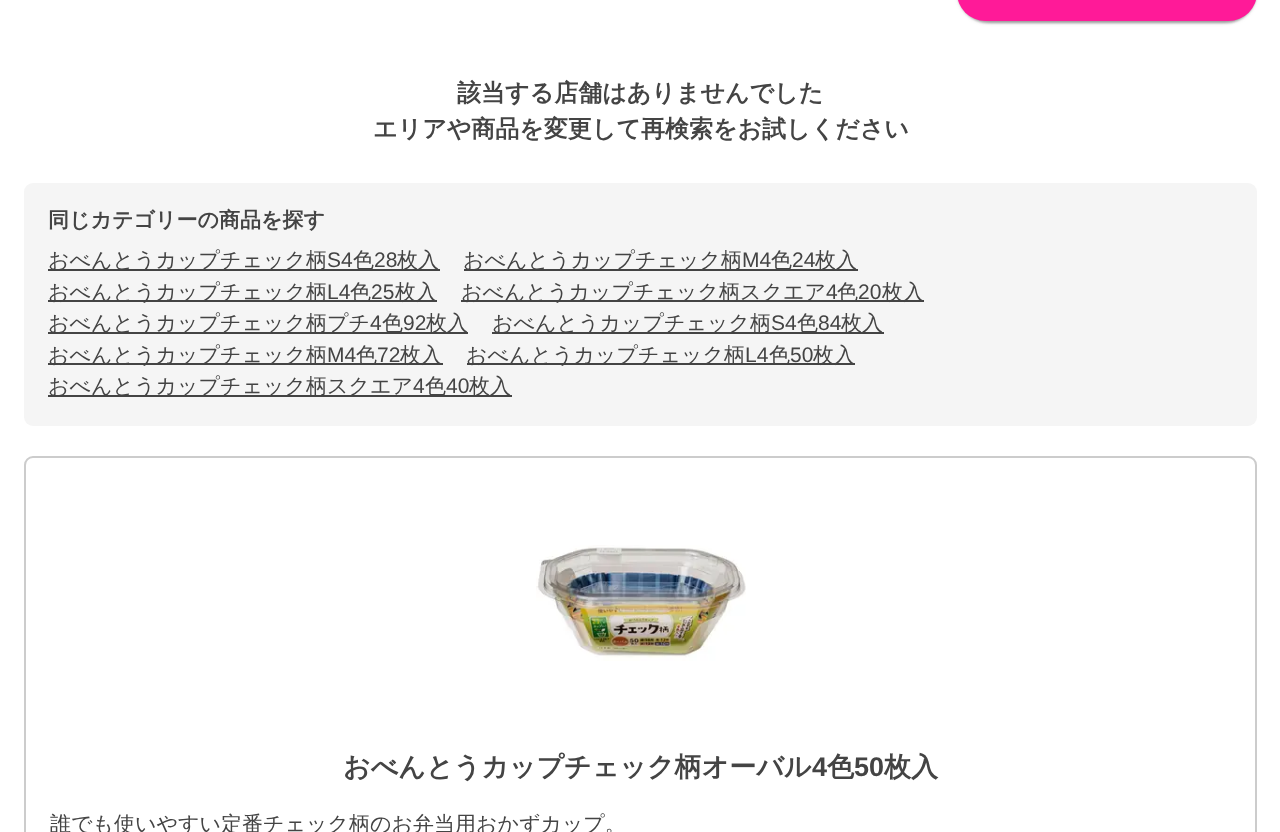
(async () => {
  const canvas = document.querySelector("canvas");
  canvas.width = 1280;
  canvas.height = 832;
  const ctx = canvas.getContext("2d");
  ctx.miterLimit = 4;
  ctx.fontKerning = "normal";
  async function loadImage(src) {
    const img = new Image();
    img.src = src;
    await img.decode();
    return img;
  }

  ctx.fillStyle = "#ffffff";
  ctx.fillRect(0, 0, 1280, 832);
  ctx.fillStyle = "rgba(0, 0, 0, 0.12)";
  ctx.filter = "blur(2px)";
  ctx.beginPath();
  ctx.roundRect(957, -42, 300, 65, 36);
  ctx.fill();
  ctx.filter = "none";
  ctx.fillStyle = "rgba(0, 0, 0, 0.14)";
  ctx.filter = "blur(1px)";
  ctx.beginPath();
  ctx.roundRect(957, -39, 300, 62, 36);
  ctx.fill();
  ctx.filter = "none";
  ctx.fillStyle = "rgba(0, 0, 0, 0.2)";
  ctx.filter = "blur(1px)";
  ctx.beginPath();
  ctx.roundRect(959, -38, 297, 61, 34.5);
  ctx.fill();
  ctx.filter = "none";
  ctx.fillStyle = "#ff1a98";
  ctx.beginPath();
  ctx.roundRect(957, -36, 300, 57, 36);
  ctx.fill();
  ctx.fillStyle = "#f5f5f5";
  ctx.beginPath();
  ctx.roundRect(24, 183, 1233, 243, 9);
  ctx.fill();
  for (const [x, y, w, h, color] of [
    [48, 269, 392, 2, "#444444"],
    [464, 269, 394, 2, "#444444"],
    [48, 300, 389, 2, "#444444"],
    [461, 300, 463, 2, "#444444"],
    [48, 332, 420, 2, "#444444"],
    [492, 332, 392, 2, "#444444"],
    [48, 363, 395, 2, "#444444"],
    [467, 363, 388, 2, "#444444"],
    [48, 395, 464, 2, "#444444"],
  ]) {
    ctx.fillStyle = color;
    ctx.fillRect(x, y, w, h);
  }
  ctx.beginPath();
  ctx.roundRect(25, 457, 1231, 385, 8);
  ctx.strokeStyle = "#cccccc";
  ctx.lineWidth = 2;
  ctx.stroke();
  ctx.drawImage(await loadImage("img/1.png"), 536, 545, 210, 116);
  ctx.font = "bold 24px WenQuanYi Zen Hei";
  ctx.fillText("該当する店舗はありませんでした", 457, 101);
  ctx.fillText("エリアや商品を変更して再検索をお試しください", 373, 137);
  ctx.font = "bold 21px WenQuanYi Zen Hei";
  ctx.fillText("同じカテゴリーの商品を探す", 48, 227);
  ctx.font = "500 21px WenQuanYi Zen Hei";
  ctx.fillText("おべんとうカップチェック柄", 48, 267);
  ctx.font = "21px Liberation Sans";
  ctx.fillText("S4", 327, 267);
  ctx.font = "500 21px WenQuanYi Zen Hei";
  ctx.fillText("色", 353, 267);
  ctx.font = "21px Liberation Sans";
  ctx.fillText("28", 374, 267);
  ctx.font = "500 21px WenQuanYi Zen Hei";
  ctx.fillText("枚入", 397, 267);
  ctx.fillText("おべんとうカップチェック柄", 463, 267);
  ctx.font = "21px Liberation Sans";
  ctx.fillText("M4", 742, 267);
  ctx.font = "500 21px WenQuanYi Zen Hei";
  ctx.fillText("色", 771, 267);
  ctx.font = "21px Liberation Sans";
  ctx.fillText("24", 792, 267);
  ctx.font = "500 21px WenQuanYi Zen Hei";
  ctx.fillText("枚入", 815, 267);
  ctx.fillText("おべんとうカップチェック柄", 48, 299);
  ctx.font = "21px Liberation Sans";
  ctx.fillText("L4", 327, 299);
  ctx.font = "500 21px WenQuanYi Zen Hei";
  ctx.fillText("色", 350, 299);
  ctx.font = "21px Liberation Sans";
  ctx.fillText("25", 371, 299);
  ctx.font = "500 21px WenQuanYi Zen Hei";
  ctx.fillText("枚入", 395, 299);
  ctx.fillText("おべんとうカップチェック柄スクエア", 461, 299);
  ctx.font = "21px Liberation Sans";
  ctx.fillText("4", 826, 299);
  ctx.font = "500 21px WenQuanYi Zen Hei";
  ctx.fillText("色", 837, 299);
  ctx.font = "21px Liberation Sans";
  ctx.fillText("20", 858, 299);
  ctx.font = "500 21px WenQuanYi Zen Hei";
  ctx.fillText("枚入", 882, 299);
  ctx.fillText("おべんとうカップチェック柄プチ", 48, 330);
  ctx.font = "21px Liberation Sans";
  ctx.fillText("4", 370, 330);
  ctx.font = "500 21px WenQuanYi Zen Hei";
  ctx.fillText("色", 382, 330);
  ctx.font = "21px Liberation Sans";
  ctx.fillText("92", 403, 330);
  ctx.font = "500 21px WenQuanYi Zen Hei";
  ctx.fillText("枚入", 426, 330);
  ctx.fillText("おべんとうカップチェック柄", 492, 330);
  ctx.font = "21px Liberation Sans";
  ctx.fillText("S4", 771, 330);
  ctx.font = "500 21px WenQuanYi Zen Hei";
  ctx.fillText("色", 797, 330);
  ctx.font = "21px Liberation Sans";
  ctx.fillText("84", 818, 330);
  ctx.font = "500 21px WenQuanYi Zen Hei";
  ctx.fillText("枚入", 841, 330);
  ctx.fillText("おべんとうカップチェック柄", 48, 362);
  ctx.font = "21px Liberation Sans";
  ctx.fillText("M4", 327, 362);
  ctx.font = "500 21px WenQuanYi Zen Hei";
  ctx.fillText("色", 356, 362);
  ctx.font = "21px Liberation Sans";
  ctx.fillText("72", 377, 362);
  ctx.font = "500 21px WenQuanYi Zen Hei";
  ctx.fillText("枚入", 400, 362);
  ctx.fillText("おべんとうカップチェック柄", 466, 362);
  ctx.font = "21px Liberation Sans";
  ctx.fillText("L4", 745, 362);
  ctx.font = "500 21px WenQuanYi Zen Hei";
  ctx.fillText("色", 769, 362);
  ctx.font = "21px Liberation Sans";
  ctx.fillText("50", 790, 362);
  ctx.font = "500 21px WenQuanYi Zen Hei";
  ctx.fillText("枚入", 813, 362);
  ctx.fillText("おべんとうカップチェック柄スクエア", 48, 393);
  ctx.font = "21px Liberation Sans";
  ctx.fillText("4", 413, 393);
  ctx.font = "500 21px WenQuanYi Zen Hei";
  ctx.fillText("色", 425, 393);
  ctx.font = "21px Liberation Sans";
  ctx.fillText("40", 446, 393);
  ctx.font = "500 21px WenQuanYi Zen Hei";
  ctx.fillText("枚入", 469, 393);
  ctx.font = "bold 27px WenQuanYi Zen Hei";
  ctx.fillText("おべんとうカップチェック柄オーバル", 343, 776);
  ctx.font = "bold 27px Liberation Sans";
  ctx.fillText("4", 812, 776);
  ctx.font = "bold 27px WenQuanYi Zen Hei";
  ctx.fillText("色", 827, 776);
  ctx.font = "bold 27px Liberation Sans";
  ctx.fillText("50", 854, 776);
  ctx.font = "bold 27px WenQuanYi Zen Hei";
  ctx.fillText("枚入", 884, 776);
  ctx.font = "500 21px WenQuanYi Zen Hei";
  ctx.fillText("誰でも使いやすい定番チェック柄のお弁当用おかずカップ。", 50, 831);
})();
